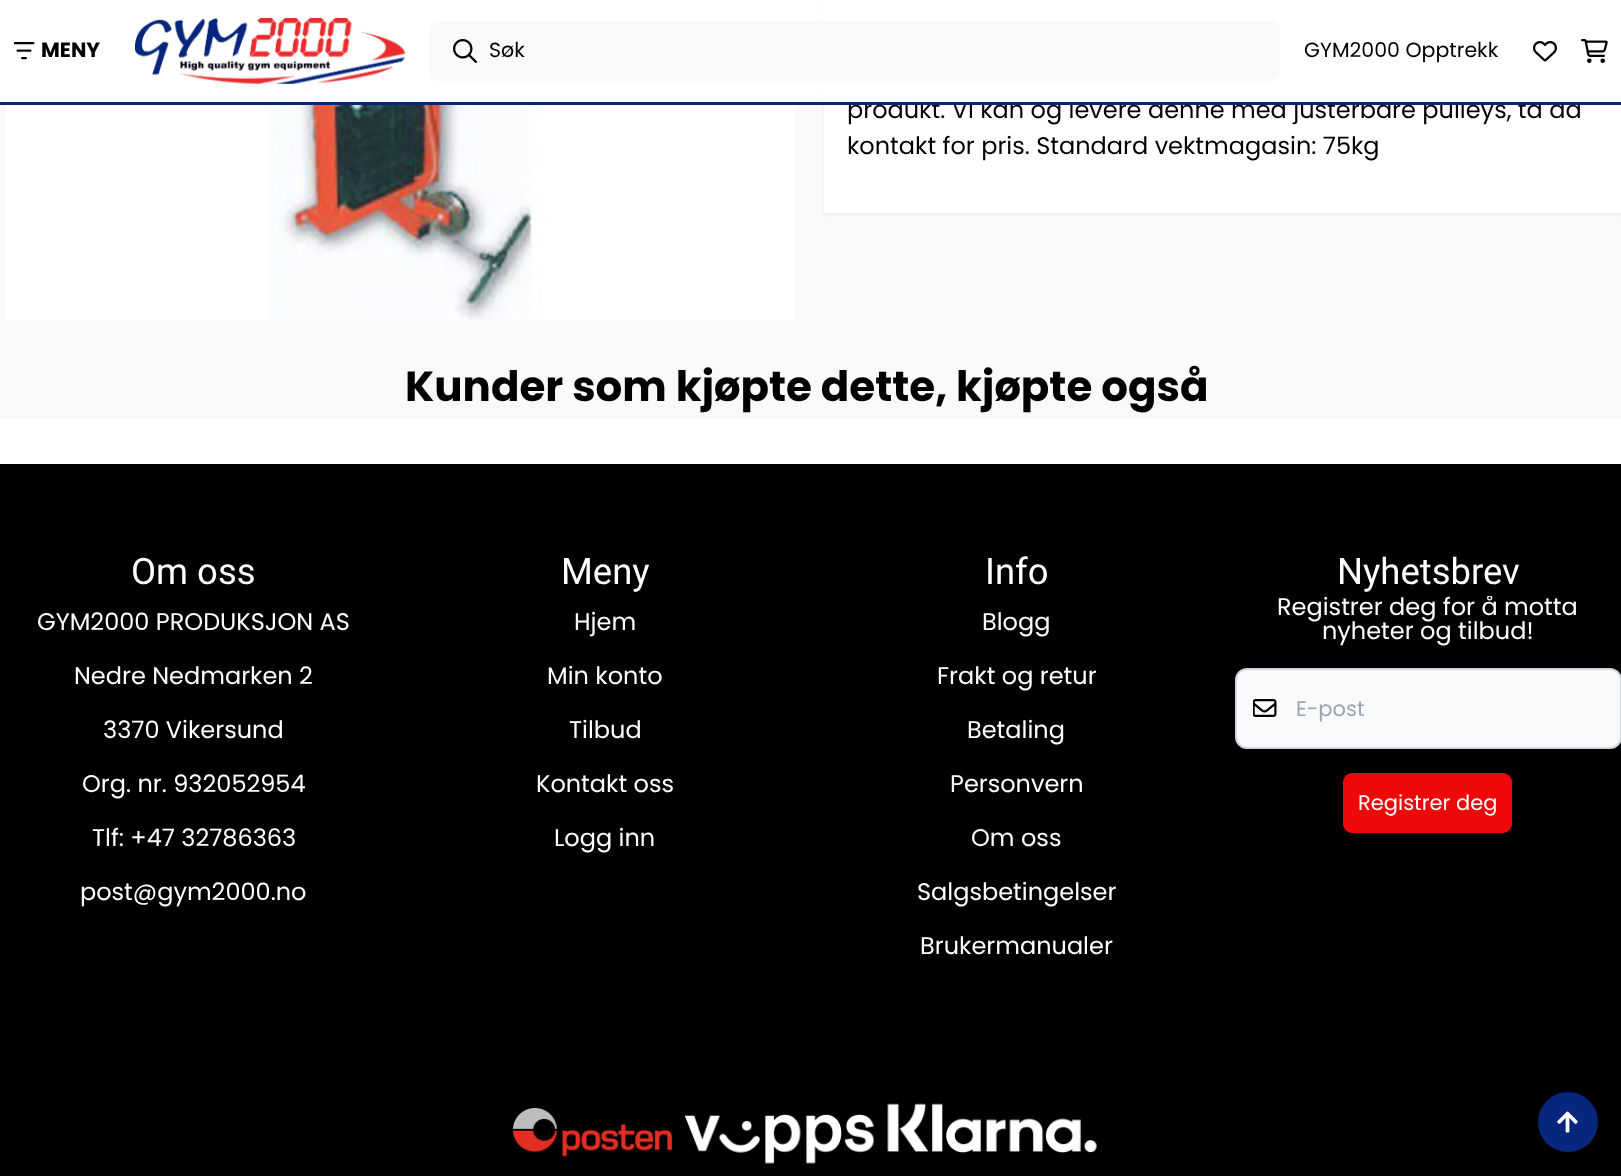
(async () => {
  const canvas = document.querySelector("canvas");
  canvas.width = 1621;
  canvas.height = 1176;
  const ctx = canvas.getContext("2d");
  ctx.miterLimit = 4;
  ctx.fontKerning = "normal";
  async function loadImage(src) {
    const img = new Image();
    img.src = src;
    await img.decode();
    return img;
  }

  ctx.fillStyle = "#ffffff";
  ctx.fillRect(0, 0, 1621, 1176);
  ctx.drawImage(await loadImage("img/1.png"), 14, 42, 21, 18);
  ctx.drawImage(await loadImage("img/2.png"), 135, 18, 271, 66);
  ctx.fillStyle = "#f9f9f9";
  ctx.fillRect(0, 105, 1621, 314);
  ctx.drawImage(await loadImage("img/6.png"), 5, 105, 790, 215);
  ctx.fillStyle = "rgba(0, 0, 0, 0.05)";
  ctx.filter = "blur(1.5px)";
  ctx.beginPath();
  ctx.rect(824, -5, 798, 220);
  ctx.fill();
  ctx.filter = "none";
  ctx.fillStyle = "#ffffff";
  ctx.fillRect(824, 105, 797, 108);
  ctx.fillStyle = "#000000";
  ctx.fillRect(0, 464, 1621, 712);
  ctx.fillStyle = "#f9fafb";
  ctx.beginPath();
  ctx.roundRect(1236, 669, 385, 79, 11);
  ctx.fill();
  ctx.strokeStyle = "#d1d5db";
  ctx.lineWidth = 2;
  ctx.stroke();
  ctx.drawImage(await loadImage("img/7.png"), 1253, 699, 24, 18);
  ctx.fillStyle = "#ef0809";
  ctx.beginPath();
  ctx.roundRect(1343, 773, 169, 60, 9);
  ctx.fill();
  ctx.drawImage(await loadImage("img/8.png"), 513, 1108, 159, 49);
  ctx.drawImage(await loadImage("img/9.png"), 684, 1114, 190, 50);
  ctx.drawImage(await loadImage("img/10.png"), 887, 1103, 210, 50);
  ctx.fillStyle = "#07277e";
  ctx.beginPath();
  ctx.arc(1568, 1122, 30, 0, Math.PI * 2);
  ctx.fill();
  ctx.drawImage(await loadImage("img/11.png"), 1557, 1111, 21, 22);
  ctx.font = "bold 20.5px Poppins";
  ctx.fillStyle = "#000000";
  ctx.fillText("MENY", 41, 57);
  ctx.font = "24px Poppins";
  ctx.fillText("produkt. VI kan og levere denne med justerbare pulleys, ta da", 847, 118);
  ctx.fillStyle = "#ffffff";
  ctx.fillRect(823, 0, 798, 102);
  ctx.fillStyle = "#f9f9f9";
  ctx.beginPath();
  ctx.roundRect(429, 21, 851, 60, 9);
  ctx.fill();
  ctx.drawImage(await loadImage("img/3.png"), 453, 39, 24, 24);
  ctx.font = "20.5px Poppins";
  ctx.fillStyle = "#000000";
  ctx.fillText("Søk", 489, 57);
  ctx.drawImage(await loadImage("img/5.png"), 1581, 39, 27, 24);
  ctx.drawImage(await loadImage("img/4.png"), 1533, 41, 24, 21);
  ctx.fillText("GYM2000 Opptrekk", 1304, 57);
  ctx.fillStyle = "#07277e";
  ctx.fillRect(0, 102, 1621, 3);
  ctx.font = "24px Poppins";
  ctx.fillStyle = "#000000";
  ctx.fillText("kontakt for pris. Standard vektmagasin: 75kg", 847, 154);
  ctx.font = "bold 42px Poppins";
  ctx.fillText("Kunder som kjøpte dette, kjøpte også", 405, 401);
  ctx.font = "36.5px Roboto";
  ctx.fillStyle = "#ffffff";
  ctx.fillText("Om oss", 131, 584);
  ctx.font = "24px Poppins";
  for (const [text, x, y] of [
    ["GYM2000 PRODUKSJON AS", 37, 630],
    ["Nedre Nedmarken 2", 74, 684],
    ["3370 Vikersund", 103, 738],
    ["Org. nr. 932052954", 82, 792],
    ["Tlf: +47 32786363", 92, 846],
    ["post@gym2000.no", 80, 900],
  ]) {
    ctx.fillText(text, x, y);
  }
  ctx.font = "36.5px Roboto";
  ctx.fillText("Meny", 561, 584);
  ctx.font = "24px Poppins";
  for (const [text, x, y] of [
    ["Hjem", 574, 630],
    ["Min konto", 547, 684],
    ["Tilbud", 569, 738],
    ["Kontakt oss", 536, 792],
    ["Logg inn", 554, 846],
  ]) {
    ctx.fillText(text, x, y);
  }
  ctx.font = "36.5px Roboto";
  ctx.fillText("Info", 985, 584);
  ctx.font = "24px Poppins";
  for (const [text, x, y] of [
    ["Blogg", 982, 630],
    ["Frakt og retur", 937, 684],
    ["Betaling", 967, 738],
    ["Personvern", 950, 792],
    ["Om oss", 971, 846],
    ["Salgsbetingelser", 917, 900],
    ["Brukermanualer", 920, 954],
  ]) {
    ctx.fillText(text, x, y);
  }
  ctx.font = "36.5px Roboto";
  ctx.fillText("Nyhetsbrev", 1337, 584);
  ctx.save();
  ctx.beginPath();
  ctx.rect(1235, 596, 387, 261);
  ctx.clip();
  ctx.font = "24px Poppins";
  ctx.fillText("Registrer deg for å motta", 1277, 615);
  ctx.restore();
  ctx.font = "24px Poppins";
  ctx.fillText("nyheter og tilbud!", 1322, 639);
  ctx.font = "21px Poppins";
  ctx.fillStyle = "#9ca3af";
  ctx.fillText("E-post", 1296, 716);
  ctx.fillStyle = "#ffffff";
  ctx.fillText("Registrer deg", 1358, 810);
})();
